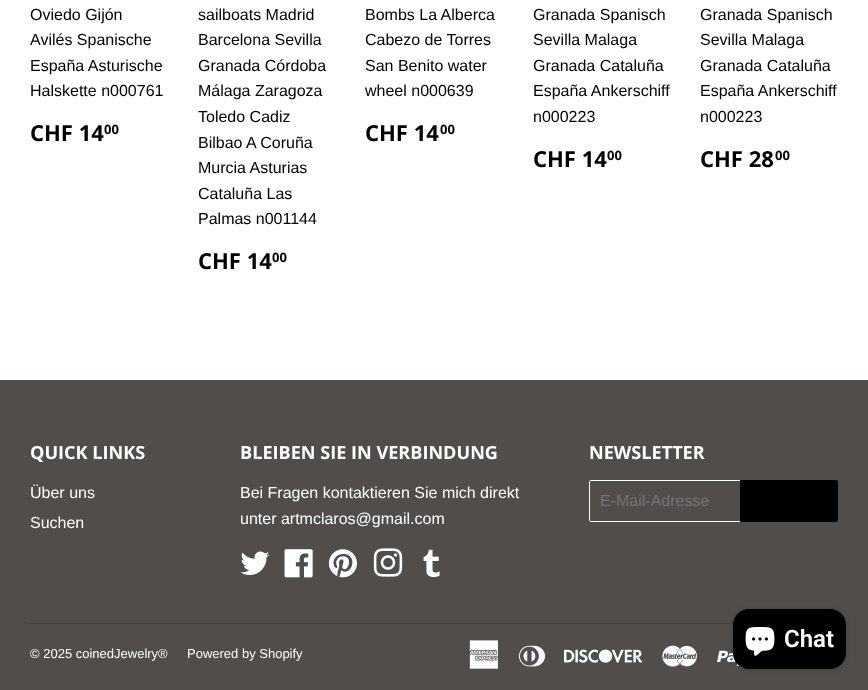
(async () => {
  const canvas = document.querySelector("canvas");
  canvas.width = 868;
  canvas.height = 690;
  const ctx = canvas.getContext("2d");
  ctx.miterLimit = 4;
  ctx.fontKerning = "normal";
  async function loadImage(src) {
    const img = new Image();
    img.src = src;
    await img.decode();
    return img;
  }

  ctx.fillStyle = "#ffffff";
  ctx.fillRect(0, 0, 868, 690);
  ctx.fillStyle = "#504d4b";
  ctx.fillRect(0, 380, 868, 310);
  ctx.drawImage(await loadImage("img/1.png"), 240, 551, 30, 24);
  ctx.drawImage(await loadImage("img/2.png"), 284, 549, 29, 29);
  ctx.drawImage(await loadImage("img/3.png"), 328, 549, 29, 29);
  ctx.drawImage(await loadImage("img/4.png"), 373, 548, 30, 29);
  ctx.drawImage(await loadImage("img/5.png"), 423, 549, 17, 29);
  for (const [x, y, w, h, color] of [
    [590, 480, 150, 1, "#ffffff"],
    [590, 521, 150, 1, "#ffffff"],
    [589, 481, 1, 40, "#ffffff"],
  ]) {
    ctx.fillStyle = color;
    ctx.fillRect(x, y, w, h);
  }
  ctx.fillStyle = "#000000";
  ctx.beginPath();
  ctx.roundRect(740, 480, 98, 42, [0, 2, 2, 0]);
  ctx.fill();
  ctx.fillStyle = "#43403f";
  ctx.fillRect(30, 623, 704, 1);
  ctx.drawImage(await loadImage("img/6.png"), 469, 640, 30, 29);
  ctx.drawImage(await loadImage("img/7.png"), 519, 645, 26, 22);
  ctx.drawImage(await loadImage("img/8.png"), 564, 649, 79, 14);
  ctx.drawImage(await loadImage("img/9.png"), 662, 645, 35, 22);
  ctx.drawImage(await loadImage("img/10.png"), 717, 650, 23, 16);
  ctx.fillStyle = "rgba(0, 0, 0, 0.15)";
  ctx.filter = "blur(2.5px)";
  ctx.beginPath();
  ctx.roundRect(733, 609, 113, 60, 16);
  ctx.fill();
  ctx.filter = "none";
  ctx.fillStyle = "#000000";
  ctx.beginPath();
  ctx.roundRect(733, 609, 113, 60, 16);
  ctx.fill();
  ctx.drawImage(await loadImage("img/11.png"), 745, 627, 30, 29);
  ctx.font = "16px Liberation Sans";
  for (const [text, x, y] of [
    ["Oviedo Gijón", 30, 20],
    ["Avilés Spanische", 30, 45],
    ["España Asturische", 30, 71],
    ["Halskette n000761", 30, 96],
  ]) {
    ctx.fillText(text, x, y);
  }
  ctx.font = "bold 22px Open Sans";
  ctx.fillText("CHF 14", 30, 141);
  ctx.font = "bold 13px Open Sans";
  ctx.fillText("00", 104, 134);
  ctx.font = "16px Liberation Sans";
  for (const [text, x, y] of [
    ["sailboats Madrid", 198, 20],
    ["Barcelona Sevilla", 198, 45],
    ["Granada Córdoba", 198, 71],
    ["Málaga Zaragoza", 198, 96],
    ["Toledo Cadiz", 198, 122],
    ["Bilbao A Coruña", 198, 148],
    ["Murcia Asturias", 198, 173],
    ["Cataluña Las", 198, 199],
    ["Palmas n001144", 198, 224],
  ]) {
    ctx.fillText(text, x, y);
  }
  ctx.font = "bold 22px Open Sans";
  ctx.fillText("CHF 14", 198, 269);
  ctx.font = "bold 13px Open Sans";
  ctx.fillText("00", 272, 262);
  ctx.font = "16px Liberation Sans";
  for (const [text, x, y] of [
    ["Bombs La Alberca", 365, 20],
    ["Cabezo de Torres", 365, 45],
    ["San Benito water", 365, 71],
    ["wheel n000639", 365, 96],
  ]) {
    ctx.fillText(text, x, y);
  }
  ctx.font = "bold 22px Open Sans";
  ctx.fillText("CHF 14", 365, 141);
  ctx.font = "bold 13px Open Sans";
  ctx.fillText("00", 440, 134);
  ctx.font = "16px Liberation Sans";
  for (const [text, x, y] of [
    ["Granada Spanisch", 533, 20],
    ["Sevilla Malaga", 533, 45],
    ["Granada Cataluña", 533, 71],
    ["España Ankerschiff", 533, 96],
    ["n000223", 533, 122],
  ]) {
    ctx.fillText(text, x, y);
  }
  ctx.font = "bold 22px Open Sans";
  ctx.fillText("CHF 14", 533, 167);
  ctx.font = "bold 13px Open Sans";
  ctx.fillText("00", 607, 160);
  ctx.font = "16px Liberation Sans";
  for (const [text, x, y] of [
    ["Granada Spanisch", 700, 20],
    ["Sevilla Malaga", 700, 45],
    ["Granada Cataluña", 700, 71],
    ["España Ankerschiff", 700, 96],
    ["n000223", 700, 122],
  ]) {
    ctx.fillText(text, x, y);
  }
  ctx.font = "bold 22px Open Sans";
  ctx.fillText("CHF 28", 700, 167);
  ctx.font = "bold 13px Open Sans";
  ctx.fillText("00", 775, 160);
  ctx.font = "bold 18.1px Open Sans";
  ctx.fillStyle = "#ffffff";
  ctx.fillText("QUICK LINKS", 30, 459);
  ctx.font = "16px Liberation Sans";
  ctx.fillText("Über uns", 30, 498);
  ctx.fillText("Suchen", 30, 528);
  ctx.font = "bold 18.1px Open Sans";
  ctx.fillText("BLEIBEN SIE IN VERBINDUNG", 240, 459);
  ctx.font = "16px Liberation Sans";
  ctx.fillText("Bei Fragen kontaktieren Sie mich direkt", 240, 498);
  ctx.fillText("unter artmclaros@gmail.com", 240, 524);
  ctx.font = "bold 18.1px Open Sans";
  ctx.fillText("NEWSLETTER", 589, 459);
  ctx.font = "16px Liberation Sans";
  ctx.fillStyle = "#757575";
  ctx.fillText("E-Mail-Adresse", 600, 506);
  ctx.font = "13px Liberation Sans";
  ctx.fillStyle = "#ffffff";
  ctx.fillText("© 2025 coinedJewelry®", 30, 658);
  ctx.fillText("Powered by Shopify", 187, 658);
  ctx.font = "600 24px Roboto";
  ctx.fillText("Chat", 784, 647);
})();
